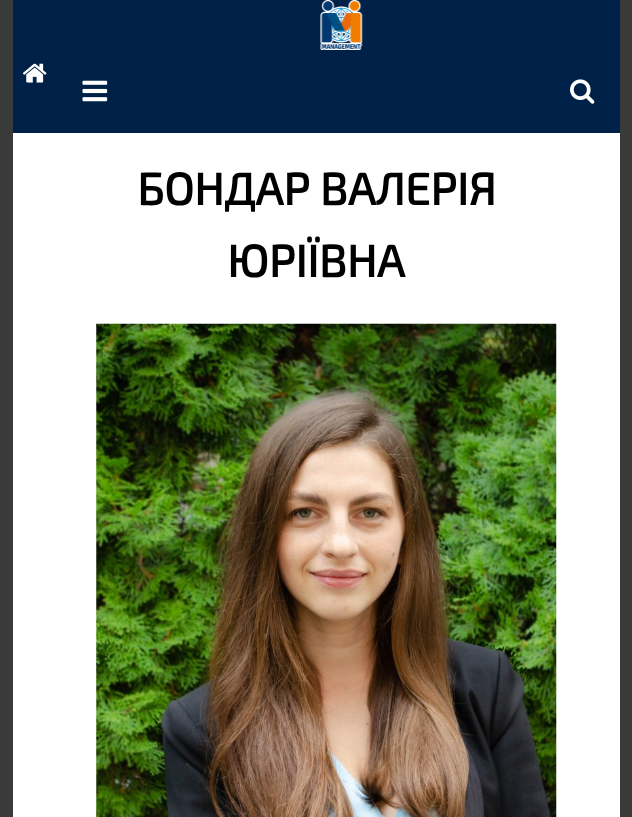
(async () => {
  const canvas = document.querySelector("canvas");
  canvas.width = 632;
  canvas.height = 817;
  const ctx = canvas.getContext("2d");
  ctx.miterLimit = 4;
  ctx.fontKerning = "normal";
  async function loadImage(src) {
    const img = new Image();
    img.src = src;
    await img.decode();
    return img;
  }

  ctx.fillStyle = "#3a3a3a";
  ctx.fillRect(0, 0, 632, 817);
  ctx.fillStyle = "#002147";
  ctx.fillRect(13, 0, 607, 133);
  ctx.drawImage(await loadImage("img/1.png"), 320, 0, 43, 50);
  ctx.drawImage(await loadImage("img/2.png"), 22, 63, 25, 20);
  ctx.drawImage(await loadImage("img/3.png"), 82, 80, 26, 22);
  ctx.drawImage(await loadImage("img/4.png"), 570, 79, 25, 25);
  ctx.fillStyle = "#ffffff";
  ctx.fillRect(13, 133, 607, 684);
  ctx.drawImage(await loadImage("img/5.png"), 96, 323, 461, 494);
  ctx.font = "bold 45px 'Exo 2'";
  ctx.fillStyle = "#000000";
  ctx.fillText("БОНДАР ВАЛЕРІЯ", 137, 205);
  ctx.fillText("ЮРІЇВНА", 227, 277);
})();
